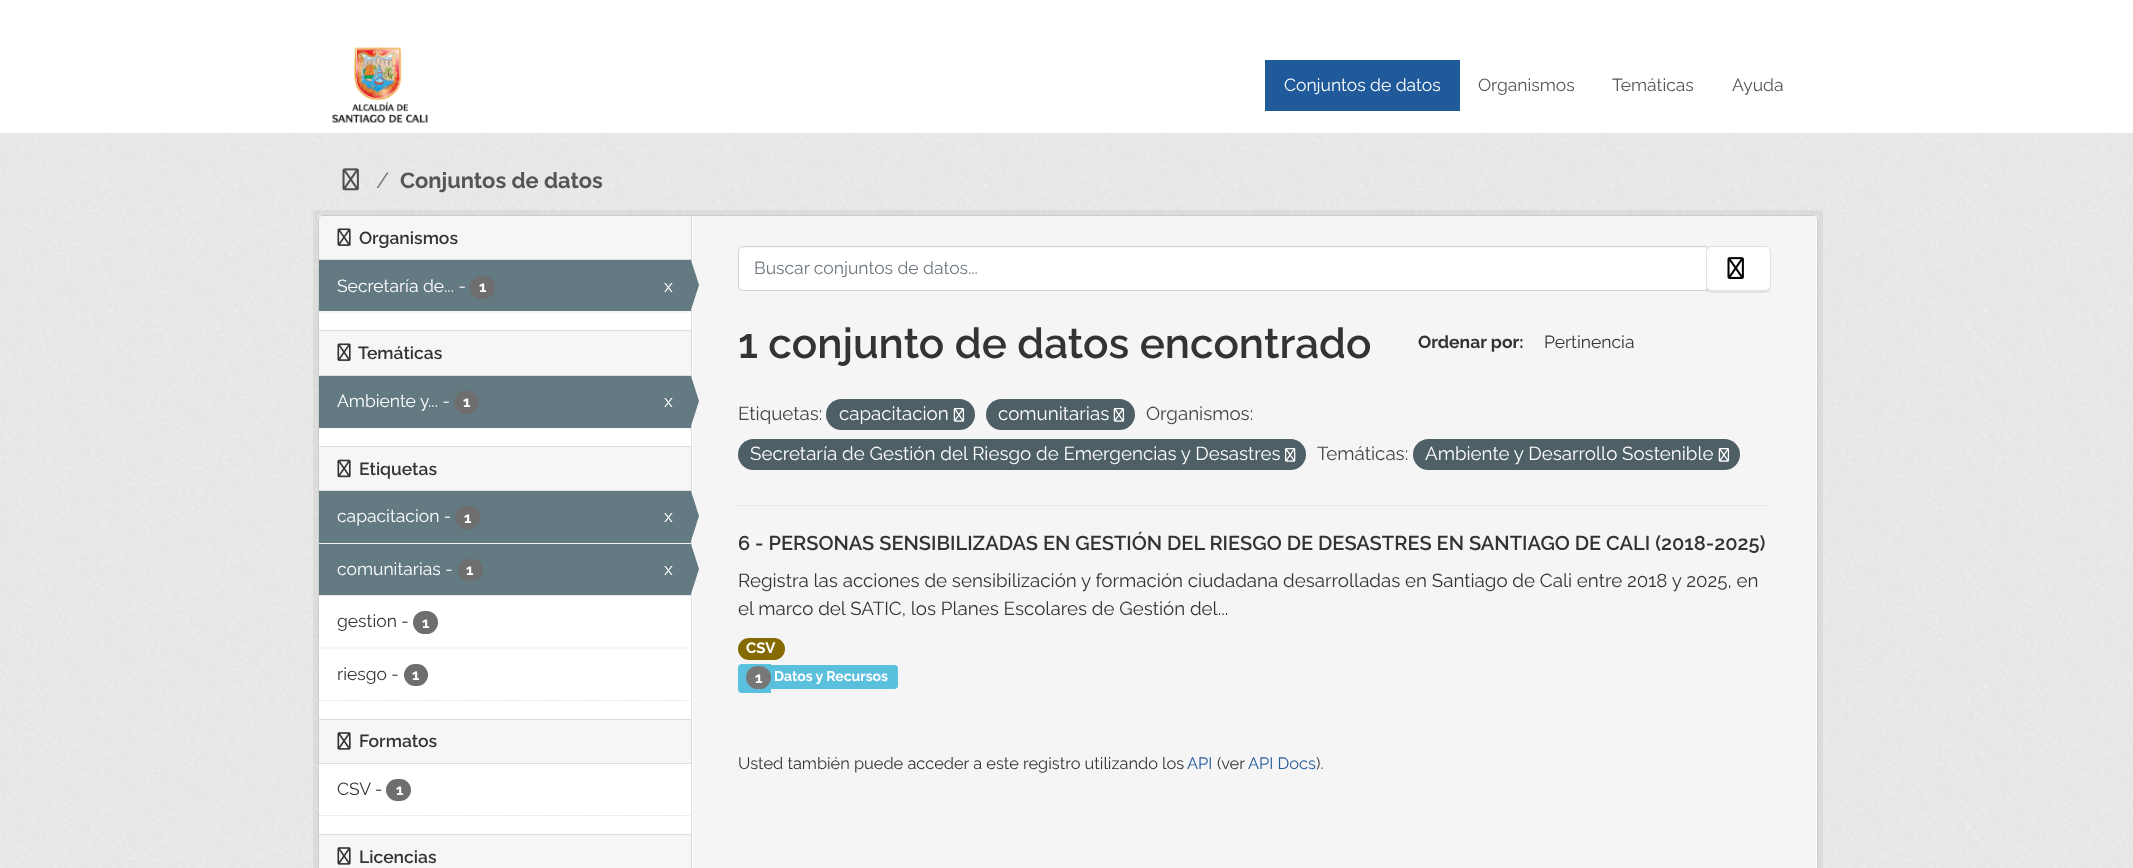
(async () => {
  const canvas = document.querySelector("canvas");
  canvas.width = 2133;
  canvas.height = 868;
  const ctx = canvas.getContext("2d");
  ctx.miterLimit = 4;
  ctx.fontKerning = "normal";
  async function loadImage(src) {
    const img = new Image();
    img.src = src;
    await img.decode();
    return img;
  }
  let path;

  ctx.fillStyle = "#ffffff";
  ctx.fillRect(0, 0, 2133, 868);
  ctx.drawImage(await loadImage("img/1.png"), 332, 47, 96, 76);
  ctx.fillStyle = "#215a9a";
  ctx.fillRect(1265, 60, 195, 51);
  ctx.fillStyle = "#eeeeee";
  ctx.fillRect(0, 133, 2133, 735);
  ctx.drawImage(await loadImage("img/2.png"), 0, 133, 2133, 735);
  ctx.drawImage(await loadImage("img/3.png"), 342, 168, 17, 23);
  ctx.strokeStyle = "rgba(0, 0, 0, 0.05)";
  ctx.lineWidth = 5;
  ctx.strokeRect(315.5, 212.5, 1505, 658);
  ctx.fillStyle = "#ffffff";
  ctx.beginPath();
  ctx.roundRect(318.5, 215.5, 1499, 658, 4.5);
  ctx.fill();
  ctx.strokeStyle = "#cccccc";
  ctx.lineWidth = 1;
  ctx.stroke();
  ctx.fillStyle = "#f6f6f6";
  ctx.beginPath();
  ctx.roundRect(319, 216, 372, 44, [4, 0, 0, 0]);
  ctx.fill();
  ctx.fillStyle = "#dddddd";
  ctx.fillRect(319, 259, 372, 1);
  ctx.drawImage(await loadImage("img/4.png"), 337, 228, 14, 18);
  ctx.fillStyle = "#647a82";
  ctx.fillRect(319, 260, 372, 51);
  ctx.fillStyle = "#6e6e6e";
  ctx.beginPath();
  ctx.roundRect(470, 276, 25, 23, 11.5);
  ctx.fill();
  ctx.fillStyle = "#dddddd";
  ctx.fillRect(691, 216, 1, 652);
  ctx.fillStyle = "#f5f5f5";
  ctx.fillRect(693, 216, 1123, 652);
  ctx.fillStyle = "#647a82";
  path = new Path2D("M691 310V260L699 285Z");
  ctx.fill(path);
  path = new Path2D("M319 312H691");
  ctx.strokeStyle = "#dddddd";
  ctx.lineWidth = 1.2;
  ctx.setLineDash([1.25, 1.25]);
  ctx.stroke(path);
  for (const [x, y, w, h, color] of [
    [319, 331, 372, 44, "#f6f6f6"],
    [319, 330, 372, 1, "#dddddd"],
    [319, 375, 372, 1, "#dddddd"],
  ]) {
    ctx.fillStyle = color;
    ctx.fillRect(x, y, w, h);
  }
  ctx.drawImage(await loadImage("img/4.png"), 337, 343, 14, 18);
  path = new Path2D("M319 428H691");
  ctx.stroke(path);
  ctx.fillStyle = "#647a82";
  ctx.fillRect(319, 376, 372, 52);
  ctx.fillStyle = "#6e6e6e";
  ctx.beginPath();
  ctx.roundRect(454, 391, 25, 23, 11.5);
  ctx.fill();
  ctx.fillStyle = "#647a82";
  path = new Path2D("M691 426V376L699 401Z");
  ctx.fill(path);
  for (const [x, y, w, h, color] of [
    [319, 447, 372, 43, "#f6f6f6"],
    [319, 446, 372, 1, "#dddddd"],
    [319, 490, 372, 1, "#dddddd"],
  ]) {
    ctx.fillStyle = color;
    ctx.fillRect(x, y, w, h);
  }
  ctx.drawImage(await loadImage("img/5.png"), 337, 459, 14, 19);
  ctx.fillStyle = "#f6f6f6";
  ctx.fillRect(319, 543, 372, 1);
  path = new Path2D("M319 543H691");
  ctx.stroke(path);
  ctx.fillStyle = "#647a82";
  ctx.fillRect(319, 491, 372, 52);
  ctx.fillStyle = "#6e6e6e";
  ctx.beginPath();
  ctx.roundRect(455, 506, 25, 23, 11.5);
  ctx.fill();
  ctx.fillStyle = "#647a82";
  path = new Path2D("M691 541V491L699 516Z");
  ctx.fill(path);
  ctx.fillStyle = "#f6f6f6";
  ctx.fillRect(320, 595, 371, 1);
  path = new Path2D("M319 595.5H691");
  ctx.stroke(path);
  ctx.fillStyle = "#647a82";
  ctx.fillRect(319, 544, 372, 51);
  ctx.fillStyle = "#6e6e6e";
  ctx.beginPath();
  ctx.roundRect(458, 559, 25, 22, 11);
  ctx.fill();
  ctx.fillStyle = "#647a82";
  path = new Path2D("M691 594V544L699 569Z");
  ctx.fill(path);
  path = new Path2D("M319 648H691");
  ctx.stroke(path);
  ctx.fillStyle = "#6e6e6e";
  ctx.beginPath();
  ctx.roundRect(413, 611, 25, 23, 11.5);
  ctx.fill();
  ctx.beginPath();
  ctx.roundRect(404, 664, 24, 22, 11);
  ctx.fill();
  path = new Path2D("M319 700.5H691");
  ctx.stroke(path);
  for (const [x, y, w, h, color] of [
    [319, 720, 372, 43, "#f6f6f6"],
    [319, 719, 372, 1, "#dddddd"],
    [319, 763, 372, 1, "#dddddd"],
  ]) {
    ctx.fillStyle = color;
    ctx.fillRect(x, y, w, h);
  }
  ctx.drawImage(await loadImage("img/6.png"), 337, 732, 14, 18);
  ctx.fillStyle = "#6e6e6e";
  ctx.beginPath();
  ctx.roundRect(386, 779, 25, 22, 11);
  ctx.fill();
  path = new Path2D("M319 815.5H691");
  ctx.stroke(path);
  ctx.fillStyle = "#f6f6f6";
  ctx.fillRect(319, 835, 372, 33);
  ctx.fillStyle = "#dddddd";
  ctx.fillRect(319, 834, 372, 1);
  ctx.drawImage(await loadImage("img/6.png"), 337, 847, 14, 18);
  path = new Path2D("M737.5 505.5H1771");
  ctx.stroke(path);
  ctx.fillStyle = "#ffffff";
  ctx.beginPath();
  ctx.roundRect(739, 248, 967, 42, [4, 0, 0, 4]);
  ctx.fill();
  ctx.beginPath();
  ctx.roundRect(738.5, 246.5, 969, 44, [4.5, 0, 0, 4.5]);
  ctx.strokeStyle = "#ced4da";
  ctx.lineWidth = 1;
  ctx.setLineDash([]);
  ctx.stroke();
  ctx.fillStyle = "rgba(0, 0, 0, 0.07)";
  ctx.filter = "blur(0.5px)";
  ctx.beginPath();
  ctx.roundRect(1706, 248, 65, 45, 6);
  ctx.fill();
  ctx.filter = "none";
  ctx.fillStyle = "#ffffff";
  ctx.beginPath();
  ctx.roundRect(1706.5, 246.5, 64, 44, 5.5);
  ctx.fill();
  ctx.strokeStyle = "#dee2e6";
  ctx.stroke();
  ctx.drawImage(await loadImage("img/7.png"), 1727, 257, 17, 22);
  ctx.fillStyle = "#4e5f65";
  ctx.beginPath();
  ctx.roundRect(826, 399, 149, 31, 15.5);
  ctx.fill();
  ctx.drawImage(await loadImage("img/8.png"), 953, 408, 12, 14);
  ctx.beginPath();
  ctx.roundRect(986, 399, 149, 31, 15.5);
  ctx.fill();
  ctx.drawImage(await loadImage("img/8.png"), 1113, 408, 12, 14);
  ctx.beginPath();
  ctx.roundRect(738, 439, 568, 31, 15.5);
  ctx.fill();
  ctx.drawImage(await loadImage("img/9.png"), 1285, 448, 11, 14);
  ctx.beginPath();
  ctx.roundRect(1413, 439, 327, 31, 15.5);
  ctx.fill();
  ctx.drawImage(await loadImage("img/8.png"), 1718, 448, 12, 14);
  ctx.fillStyle = "#856a00";
  ctx.beginPath();
  ctx.roundRect(738, 638, 47, 22, 11);
  ctx.fill();
  ctx.fillStyle = "#5bc0de";
  ctx.beginPath();
  ctx.roundRect(738, 664, 33, 29, [4, 0, 0, 4]);
  ctx.fill();
  ctx.beginPath();
  ctx.roundRect(771, 665, 127, 24, [0, 4, 4, 0]);
  ctx.fill();
  ctx.fillStyle = "#777777";
  ctx.beginPath();
  ctx.roundRect(746, 666, 25, 23, 11.5);
  ctx.fill();
  ctx.font = "17.5px Raleway";
  ctx.fillStyle = "#ffffff";
  ctx.fillText("Conjuntos de datos", 1284, 91);
  ctx.fillStyle = "#555555";
  for (const [text, x, y] of [
    ["Organismos", 1478, 91],
    ["Temáticas", 1612, 91],
    ["Ayuda", 1732, 91],
  ]) {
    ctx.fillText(text, x, y);
  }
  ctx.font = "21.9px Raleway";
  ctx.fillStyle = "#6c757d";
  ctx.fillText("/", 376, 188);
  ctx.font = "bold 21.9px Raleway";
  ctx.fillStyle = "#555555";
  ctx.fillText("Conjuntos de datos", 400, 188);
  ctx.font = "600 17.5px Raleway";
  ctx.fillStyle = "#333333";
  ctx.fillText("Organismos", 359, 244);
  ctx.font = "17.5px Raleway";
  ctx.fillStyle = "#ffffff";
  ctx.fillText("Secretaría de... -", 337, 292);
  ctx.font = "bold 15px Raleway";
  ctx.fillText("1", 479, 292);
  ctx.font = "17.5px Raleway";
  ctx.fillText("x", 664, 292);
  ctx.font = "600 17.5px Raleway";
  ctx.fillStyle = "#333333";
  ctx.fillText("Temáticas", 358, 359);
  ctx.font = "17.5px Raleway";
  ctx.fillStyle = "#ffffff";
  ctx.fillText("Ambiente y... -", 337, 407);
  ctx.font = "bold 15px Raleway";
  ctx.fillText("1", 463, 407);
  ctx.font = "17.5px Raleway";
  ctx.fillText("x", 664, 407);
  ctx.font = "600 17.5px Raleway";
  ctx.fillStyle = "#333333";
  ctx.fillText("Etiquetas", 359, 475);
  ctx.font = "17.5px Raleway";
  ctx.fillStyle = "#ffffff";
  ctx.fillText("capacitacion -", 337, 522);
  ctx.font = "bold 15px Raleway";
  ctx.fillText("1", 464, 523);
  ctx.font = "17.5px Raleway";
  ctx.fillText("x", 664, 522);
  ctx.fillText("comunitarias -", 337, 575);
  ctx.font = "bold 15px Raleway";
  ctx.fillText("1", 466, 575);
  ctx.font = "17.5px Raleway";
  ctx.fillText("x", 664, 575);
  ctx.fillStyle = "#333333";
  ctx.fillText("gestion -", 337, 627);
  ctx.font = "bold 15px Raleway";
  ctx.fillStyle = "#ffffff";
  ctx.fillText("1", 422, 628);
  ctx.font = "17.5px Raleway";
  ctx.fillStyle = "#333333";
  ctx.fillText("riesgo -", 337, 680);
  ctx.font = "bold 15px Raleway";
  ctx.fillStyle = "#ffffff";
  ctx.fillText("1", 412, 680);
  ctx.font = "600 17.5px Raleway";
  ctx.fillStyle = "#333333";
  ctx.fillText("Formatos", 359, 747);
  ctx.font = "17.5px Raleway";
  ctx.fillText("CSV", 337, 795);
  ctx.fillText("-", 375, 795);
  ctx.font = "bold 15px Raleway";
  ctx.fillStyle = "#ffffff";
  ctx.fillText("1", 396, 795);
  ctx.font = "600 17.5px Raleway";
  ctx.fillStyle = "#333333";
  ctx.fillText("Licencias", 359, 863);
  ctx.font = "17.5px Raleway";
  ctx.fillStyle = "#6c757d";
  ctx.fillText("Buscar conjuntos de datos...", 754, 274);
  ctx.font = "600 42.25px Raleway";
  ctx.fillStyle = "#333333";
  ctx.fillText("1 conjunto de datos encontrado", 738, 358);
  ctx.font = "bold 17.5px Raleway";
  ctx.fillText("Ordenar por:", 1418, 348);
  ctx.font = "17.5px Raleway";
  ctx.fillText("Pertinencia", 1544, 348);
  ctx.font = "18.75px Raleway";
  ctx.fillStyle = "#444444";
  ctx.fillText("Etiquetas:", 738, 420);
  ctx.fillStyle = "#ffffff";
  ctx.fillText("capacitacion", 839, 420);
  ctx.fillText("comunitarias", 998, 420);
  ctx.fillStyle = "#444444";
  ctx.fillText("Organismos:", 1146, 420);
  ctx.fillStyle = "#ffffff";
  ctx.fillText("Secretaría de Gestión del Riesgo de Emergencias y Desastres", 750, 460);
  ctx.fillStyle = "#444444";
  ctx.fillText("Temáticas:", 1317, 460);
  ctx.fillStyle = "#ffffff";
  ctx.fillText("Ambiente y Desarrollo Sostenible", 1425, 460);
  ctx.font = "600 20px Raleway";
  ctx.fillStyle = "#333333";
  ctx.fillText("6 - PERSONAS SENSIBILIZADAS EN GESTIÓN DEL RIESGO DE DESASTRES EN SANTIAGO DE CALI (2018-2025)", 738, 550);
  ctx.font = "18.75px Raleway";
  ctx.fillText("Registra las acciones de sensibilización y formación ciudadana desarrolladas en Santiago de Cali entre 2018 y 2025, en", 738, 587);
  ctx.fillText("el marco del SATIC, los Planes Escolares de Gestión del...", 738, 615);
  ctx.font = "bold 15px Raleway";
  ctx.fillStyle = "#ffffff";
  ctx.fillText("CSV", 746, 653);
  ctx.fillText("1", 755, 683);
  ctx.font = "bold 14px Raleway";
  ctx.fillText("Datos y Recursos", 774, 681);
  ctx.font = "16.4px Raleway";
  ctx.fillStyle = "#333333";
  ctx.fillText("Usted también puede acceder a este registro utilizando los", 738, 769);
  ctx.fillStyle = "#215a9a";
  ctx.fillText("API", 1187, 769);
  ctx.fillStyle = "#333333";
  ctx.fillText("(ver", 1217, 769);
  ctx.fillStyle = "#215a9a";
  ctx.fillText("API Docs", 1248, 769);
  ctx.fillStyle = "#333333";
  ctx.fillText(").", 1316, 769);
})();
